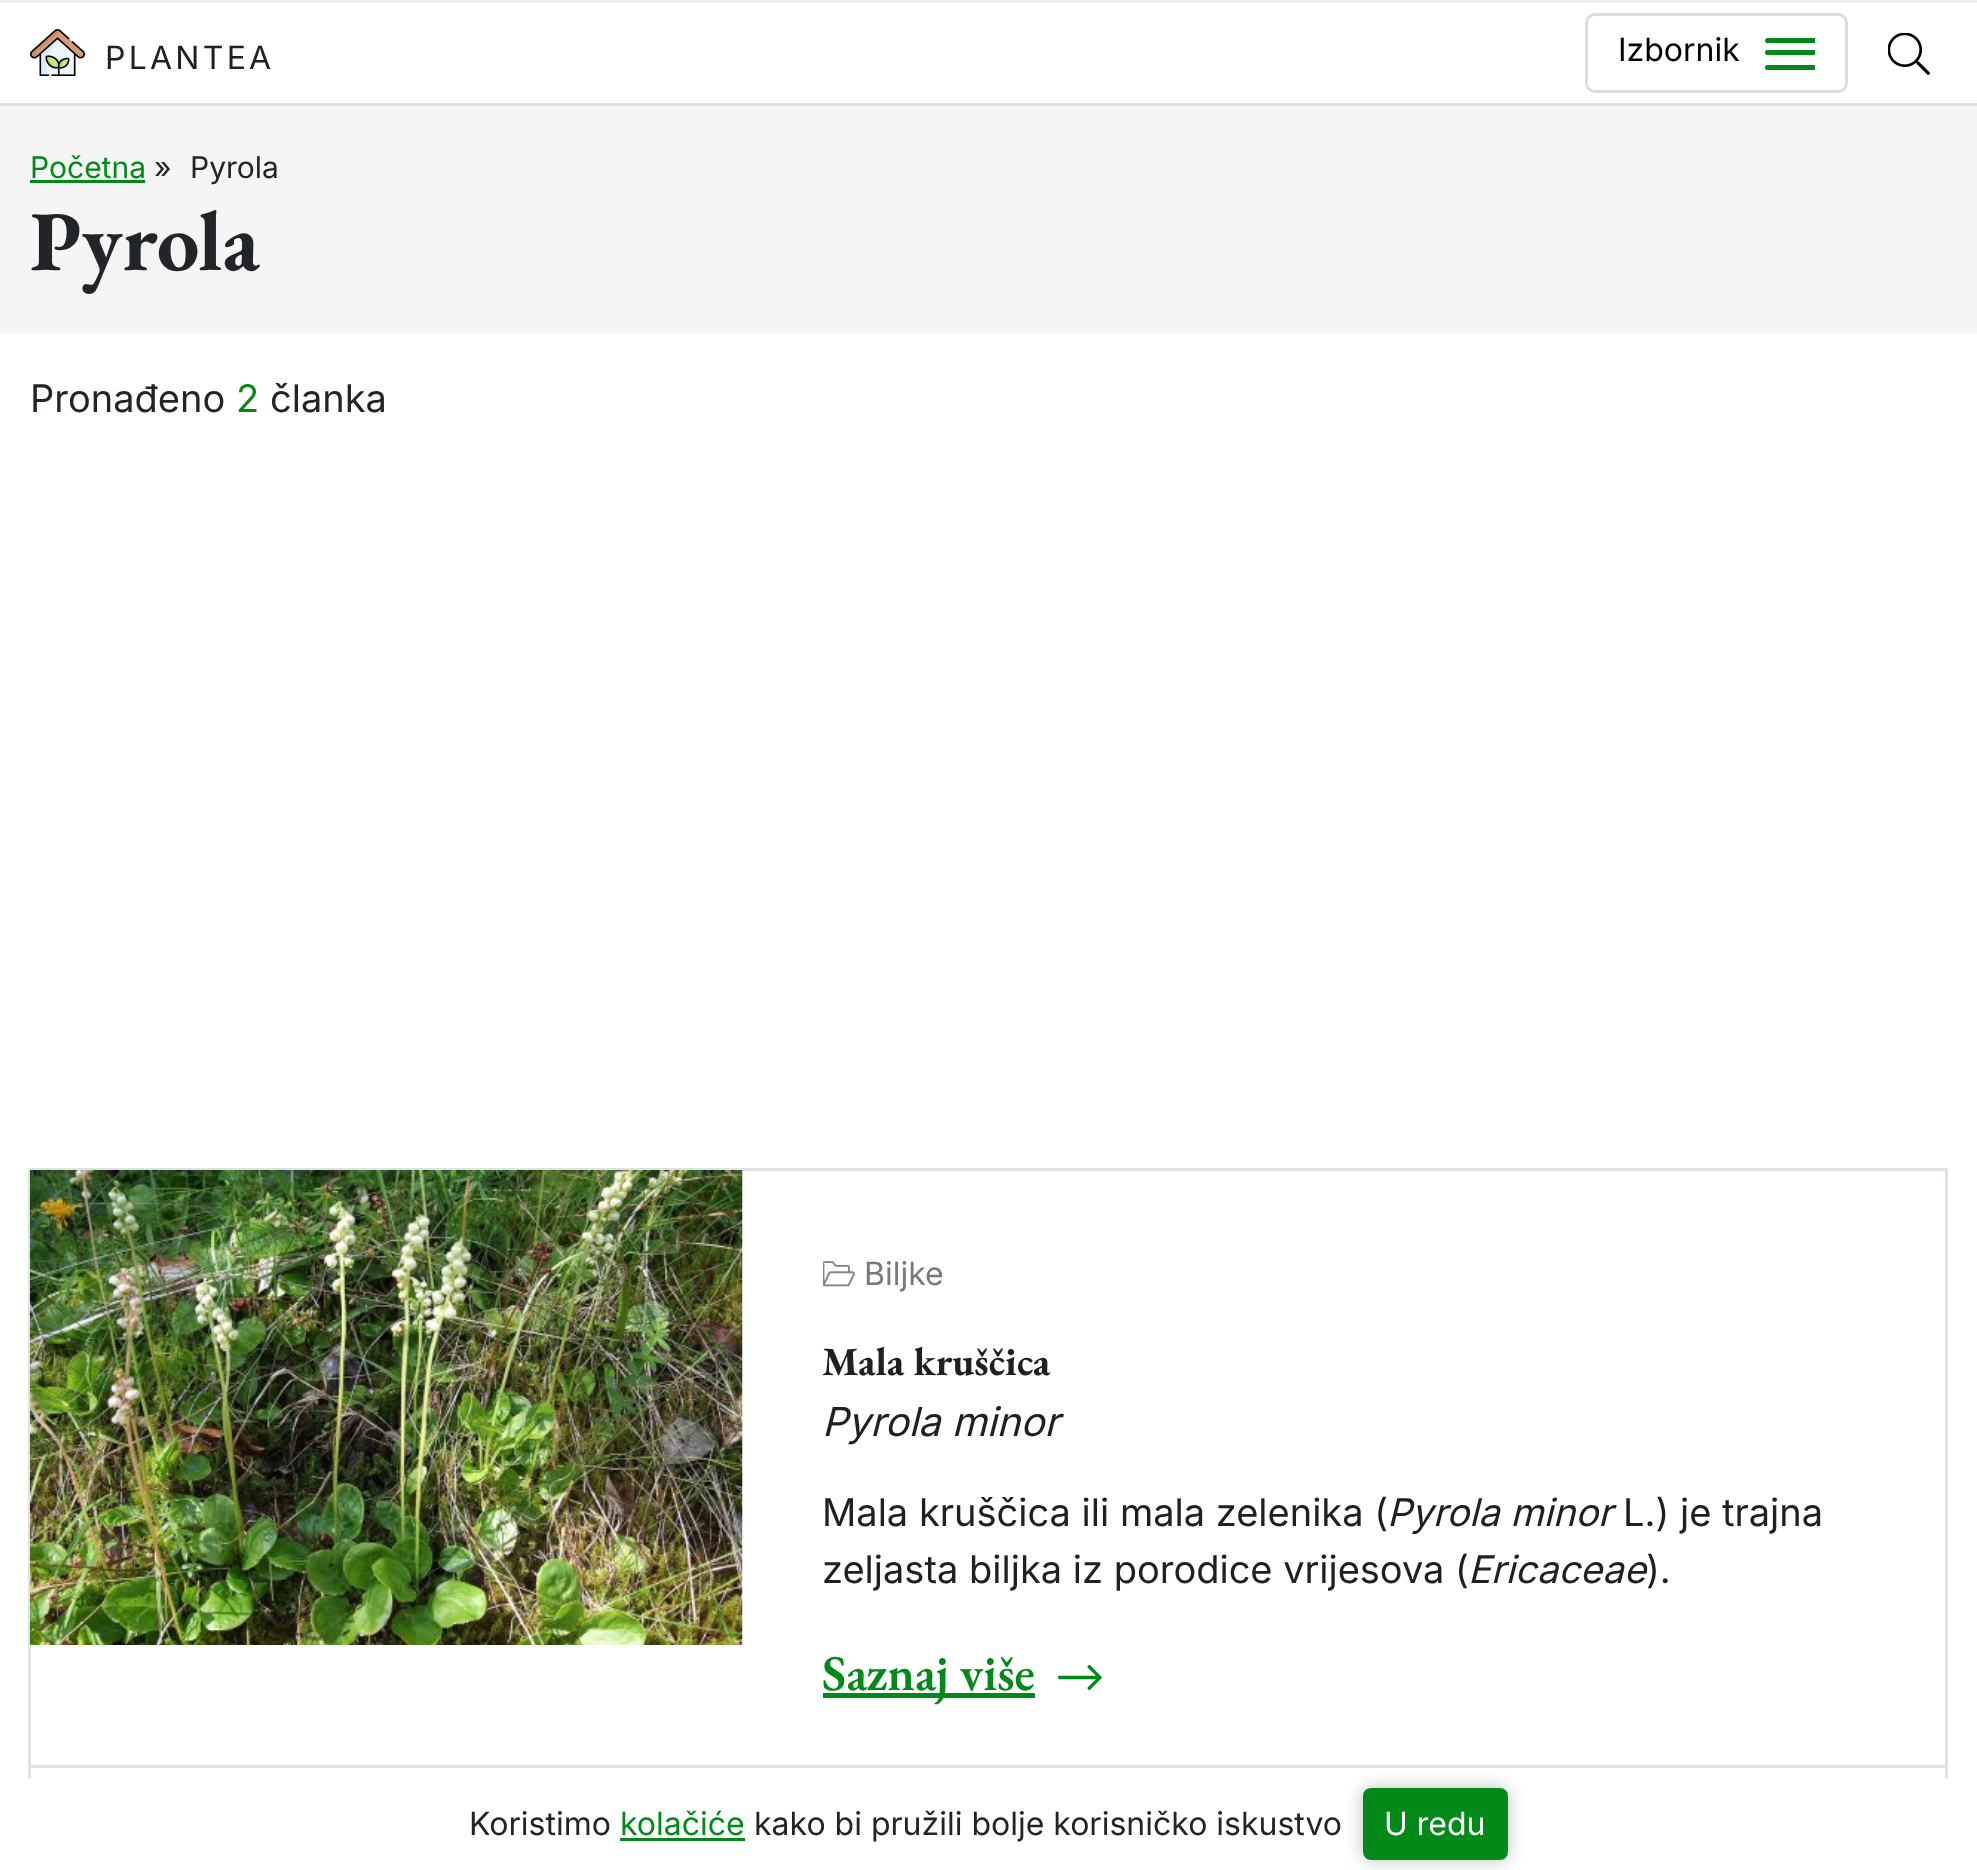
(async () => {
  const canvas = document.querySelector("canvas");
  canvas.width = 1977;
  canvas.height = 1870;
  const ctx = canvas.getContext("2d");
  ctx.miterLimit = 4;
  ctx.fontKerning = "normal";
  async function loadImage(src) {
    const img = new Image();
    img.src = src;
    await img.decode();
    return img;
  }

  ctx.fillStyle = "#ffffff";
  ctx.fillRect(0, 0, 1977, 1870);
  ctx.fillStyle = "#eeeeee";
  ctx.fillRect(0, 0, 1977, 3);
  ctx.fillStyle = "#dddddd";
  ctx.fillRect(0, 103, 1977, 3);
  ctx.drawImage(await loadImage("img/1.png"), 30, 29, 55, 47);
  ctx.beginPath();
  ctx.roundRect(1586.5, 14.5, 260, 77, 8.5);
  ctx.strokeStyle = "#dddddd";
  ctx.lineWidth = 3;
  ctx.stroke();
  ctx.fillStyle = "#018a18";
  ctx.beginPath();
  ctx.roundRect(1765, 38, 50, 5, [2.5, 0, 0, 2.5]);
  ctx.fill();
  ctx.beginPath();
  ctx.roundRect(1765, 50, 50, 5, [2.5, 0, 0, 2.5]);
  ctx.fill();
  ctx.beginPath();
  ctx.roundRect(1765, 65, 50, 5, [2.5, 0, 0, 2.5]);
  ctx.fill();
  ctx.drawImage(await loadImage("img/2.png"), 1888, 33, 42, 42);
  ctx.fillStyle = "#f5f5f5";
  ctx.fillRect(0, 106, 1977, 227);
  ctx.fillStyle = "#018a18";
  ctx.fillRect(30, 180, 115, 3);
  ctx.strokeStyle = "#dee2e6";
  ctx.strokeRect(29.5, 1169.5, 1917, 597);
  ctx.drawImage(await loadImage("img/3.png"), 30, 1170, 713, 475);
  ctx.drawImage(await loadImage("img/4.png"), 823, 1261, 32, 26);
  ctx.fillRect(823, 1693, 212, 5);
  ctx.drawImage(await loadImage("img/5.png"), 1058, 1665, 44, 25);
  ctx.strokeRect(29.5, 1766.5, 1917, 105);
  ctx.fillStyle = "#ffffff";
  ctx.fillRect(28, 1778, 1920, 92);
  ctx.fillStyle = "#018a18";
  ctx.fillRect(620, 1838, 125, 3);
  ctx.fillStyle = "rgba(0, 0, 0, 0.25)";
  ctx.filter = "blur(9px)";
  ctx.beginPath();
  ctx.roundRect(1363, 1788, 145, 72, 8);
  ctx.fill();
  ctx.filter = "none";
  ctx.fillStyle = "#018a18";
  ctx.beginPath();
  ctx.roundRect(1363, 1788, 145, 72, 8);
  ctx.fill();
  ctx.letterSpacing = "3.25px";
  ctx.font = "32px Inter";
  ctx.fillStyle = "#202020";
  ctx.fillText("PLANTEA", 105, 69);
  ctx.letterSpacing = "0px";
  ctx.fillStyle = "#000000";
  ctx.fillText("Izbornik", 1618, 61);
  ctx.font = "30px Inter";
  ctx.fillStyle = "#018a18";
  ctx.fillText("Početna", 30, 178);
  ctx.fillStyle = "#212529";
  ctx.fillText("»", 154, 178);
  ctx.fillText("Pyrola", 190, 178);
  ctx.font = "bold 85px EB Garamond";
  ctx.fillText("Pyrola", 30, 270);
  ctx.font = "38px Inter";
  ctx.fillText("Pronađeno", 30, 412);
  ctx.fillStyle = "#018a18";
  ctx.fillText("2", 236, 412);
  ctx.fillStyle = "#212529";
  ctx.fillText("članka", 270, 412);
  ctx.font = "32px Inter";
  ctx.fillStyle = "#797979";
  ctx.fillText("Biljke", 864, 1285);
  ctx.font = "bold 40px EB Garamond";
  ctx.fillStyle = "#202020";
  ctx.fillText("Mala kruščica", 822, 1375);
  ctx.font = "italic 40px Inter";
  ctx.fillText("Pyrola minor", 822, 1436);
  ctx.font = "38px Inter";
  ctx.fillText("Mala kruščica ili mala zelenika (", 822, 1526);
  ctx.font = "italic 38px Inter";
  ctx.fillText("Pyrola minor", 1387, 1526);
  ctx.font = "38px Inter";
  ctx.fillText("L.) je trajna", 1623, 1526);
  ctx.fillText("zeljasta biljka iz porodice vrijesova (", 822, 1583);
  ctx.font = "italic 38px Inter";
  ctx.fillText("Ericaceae", 1468, 1583);
  ctx.font = "38px Inter";
  ctx.fillText(").", 1646, 1583);
  ctx.font = "600 50px EB Garamond";
  ctx.fillStyle = "#018a18";
  ctx.fillText("Saznaj više", 822, 1690);
  ctx.font = "32px Inter";
  ctx.fillStyle = "#212529";
  ctx.fillText("Koristimo", 469, 1835);
  ctx.fillStyle = "#018a18";
  ctx.fillText("kolačiće", 620, 1835);
  ctx.fillStyle = "#212529";
  ctx.fillText("kako bi pružili bolje korisničko iskustvo", 754, 1835);
  ctx.fillStyle = "#ffffff";
  ctx.fillText("U redu", 1384, 1835);
})();
